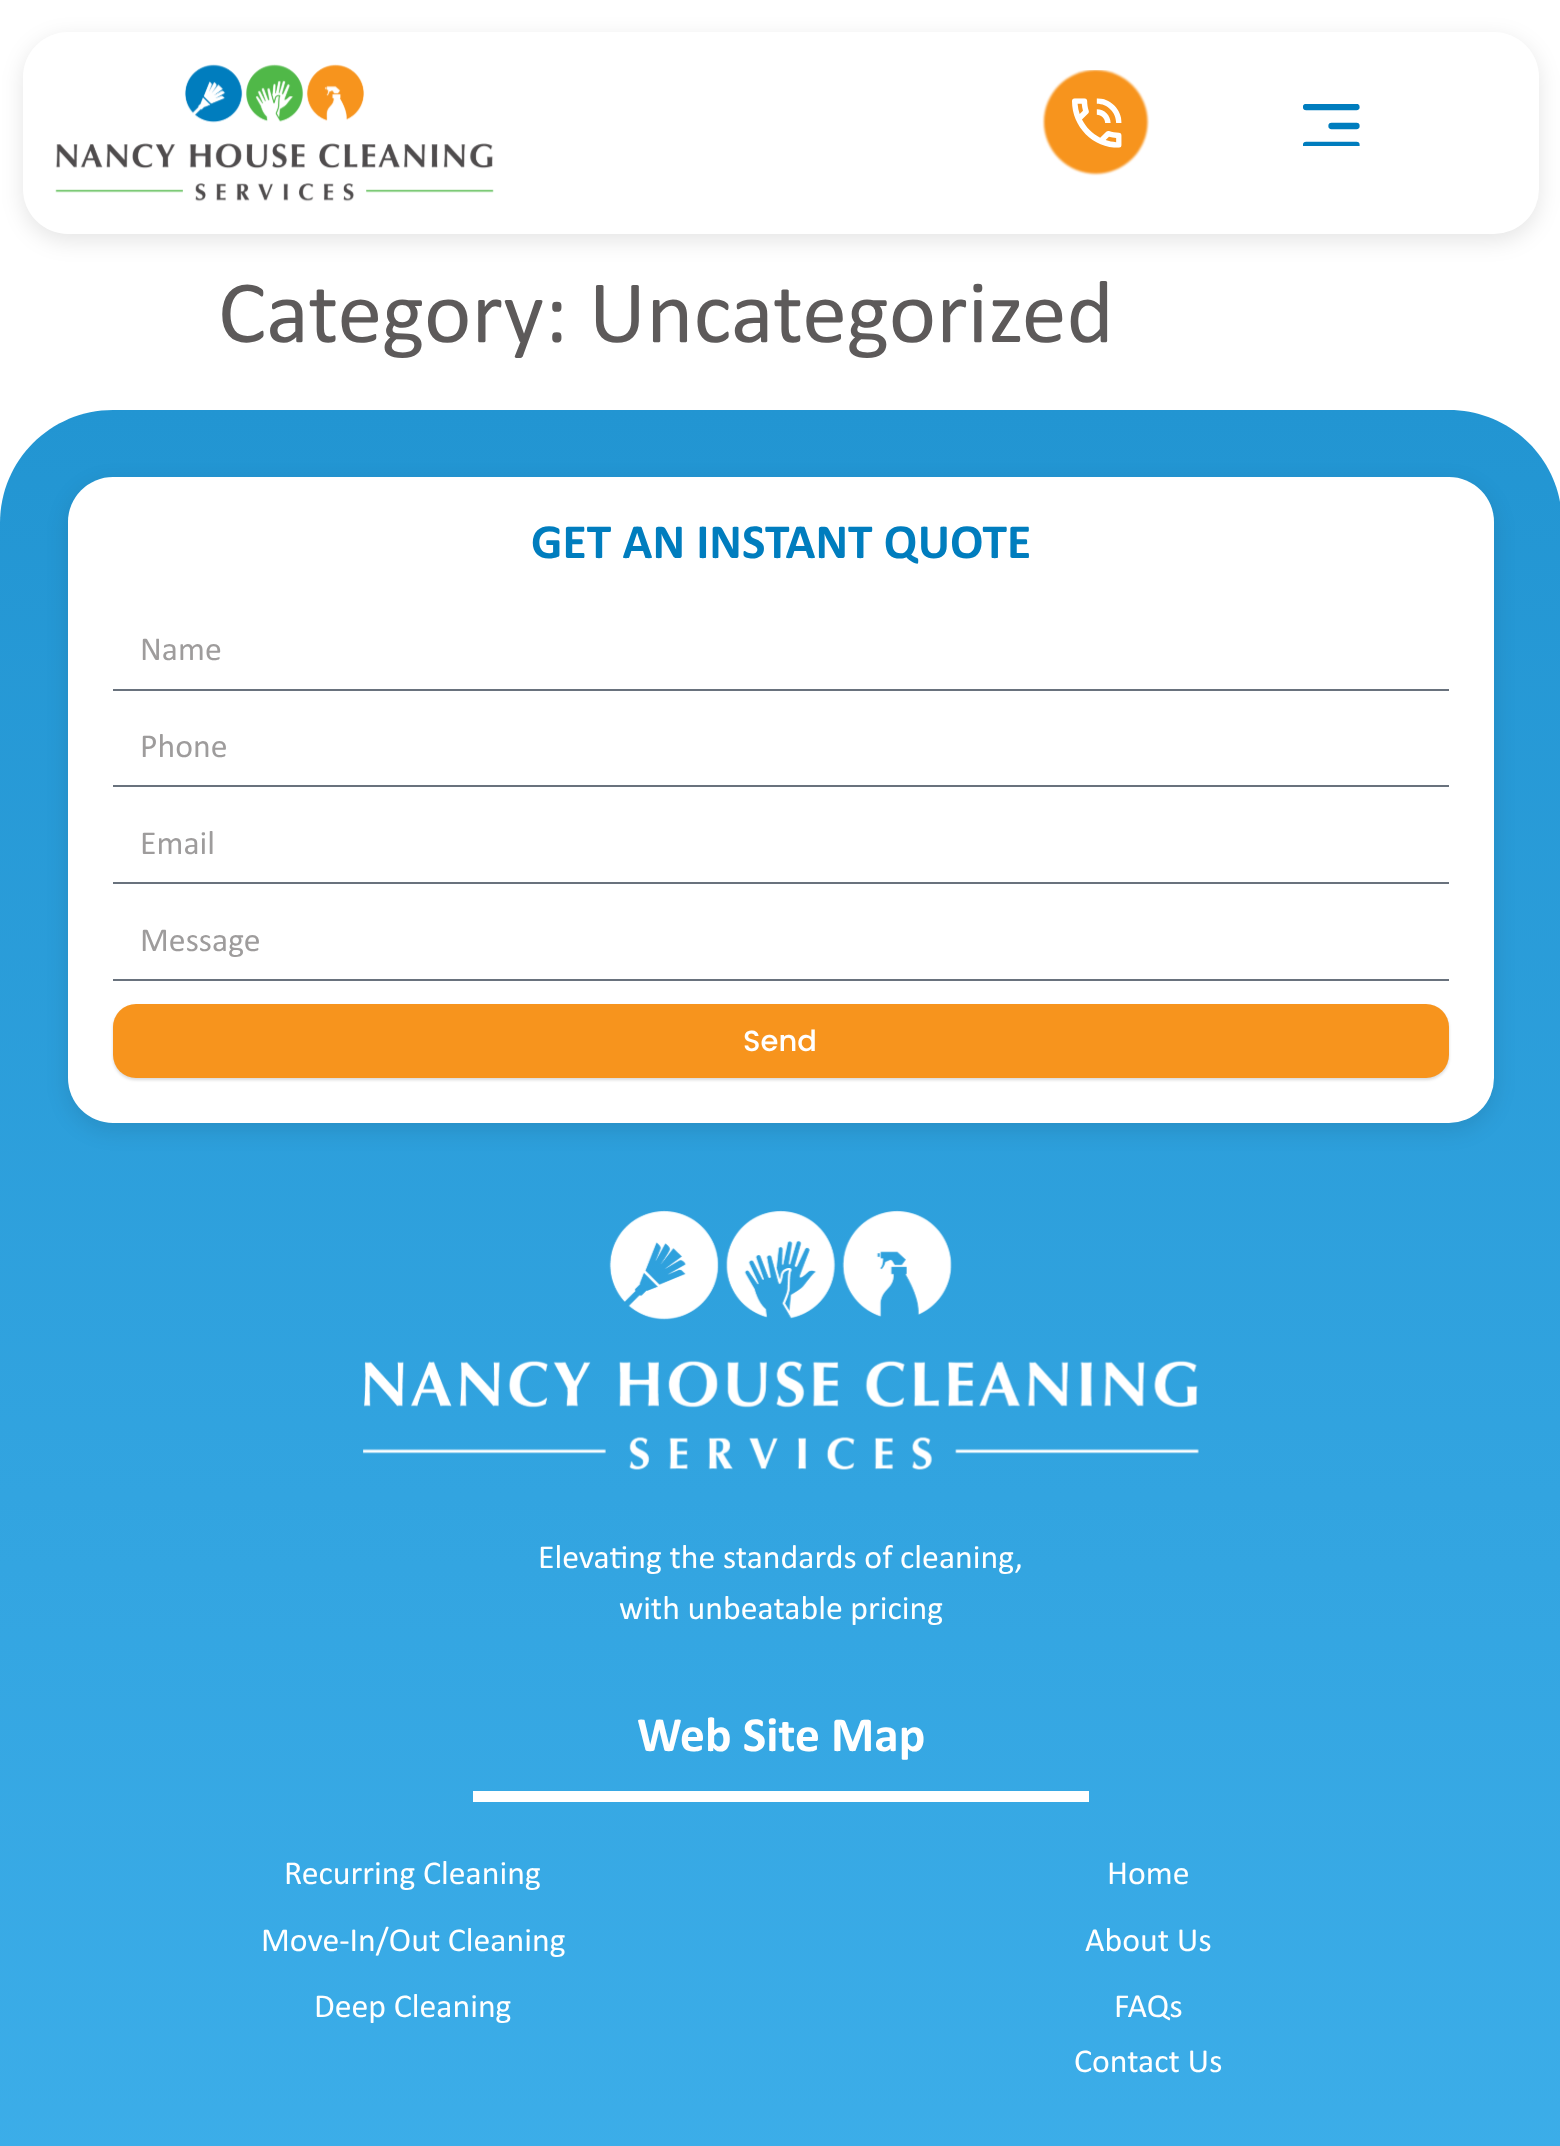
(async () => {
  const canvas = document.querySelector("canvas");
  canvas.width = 1560;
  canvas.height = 2146;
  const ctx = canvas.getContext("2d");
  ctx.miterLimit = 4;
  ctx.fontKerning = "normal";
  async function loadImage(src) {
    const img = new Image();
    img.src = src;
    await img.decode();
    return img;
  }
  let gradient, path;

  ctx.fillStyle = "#ffffff";
  ctx.fillRect(0, 0, 1560, 2146);
  ctx.fillStyle = "rgba(0, 0, 0, 0.1)";
  ctx.filter = "blur(11px)";
  ctx.beginPath();
  ctx.roundRect(23, 38, 1516, 203, 45);
  ctx.fill();
  ctx.filter = "none";
  ctx.fillStyle = "#ffffff";
  ctx.beginPath();
  ctx.roundRect(23, 32, 1516, 202, 45);
  ctx.fill();
  ctx.drawImage(await loadImage("img/1.png"), 55, 64, 439, 138);
  ctx.drawImage(await loadImage("img/2.png"), 1042, 70, 108, 106);
  ctx.save();
  ctx.beginPath();
  ctx.rect(1303, 104, 57, 42);
  ctx.clip();
  path = new Path2D("M1356.5 145H1306M1356.5 126H1331.5M1356.5 107H1306");
  ctx.strokeStyle = "#007dbe";
  ctx.lineWidth = 6.3;
  ctx.lineCap = "round";
  ctx.lineJoin = "round";
  ctx.stroke(path);
  ctx.restore();
  gradient = ctx.createLinearGradient(781, 409, 781, 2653);
  gradient.addColorStop(0, "#2295d2");
  gradient.addColorStop(1, "#43b4ef");
  ctx.fillStyle = gradient;
  path = new Path2D("M113 410H1449C1511.5 410 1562 460.5 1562 523V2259H0V523C0 460.5 50.5 410 113 410Z");
  ctx.fill(path);
  ctx.fillStyle = "rgba(0, 0, 0, 0.1)";
  ctx.filter = "blur(11px)";
  ctx.beginPath();
  ctx.roundRect(68, 484, 1426, 646, 45);
  ctx.fill();
  ctx.filter = "none";
  ctx.fillStyle = "#ffffff";
  ctx.beginPath();
  ctx.roundRect(68, 477, 1426, 646, 45);
  ctx.fill();
  for (const [x, y, w, h, color] of [
    [113, 689, 1336, 2, "#69727d"],
    [113, 785, 1336, 2, "#69727d"],
    [113, 882, 1336, 2, "#69727d"],
    [113, 979, 1336, 2, "#69727d"],
  ]) {
    ctx.fillStyle = color;
    ctx.fillRect(x, y, w, h);
  }
  ctx.fillStyle = "rgba(0, 0, 0, 0.15)";
  ctx.filter = "blur(1.5px)";
  ctx.beginPath();
  ctx.roundRect(113, 1006, 1336, 74, 23);
  ctx.fill();
  ctx.filter = "none";
  ctx.fillStyle = "#f7941d";
  ctx.beginPath();
  ctx.roundRect(113, 1004, 1336, 74, 23);
  ctx.fill();
  ctx.drawImage(await loadImage("img/3.png"), 363, 1210, 836, 260);
  ctx.fillStyle = "#ffffff";
  ctx.fillRect(473, 1791, 616, 11);
  ctx.font = "90px Calibri";
  ctx.fillStyle = "#5d5a5a";
  ctx.fillText("Category: Uncategorized", 218, 342);
  ctx.font = "bold 49.5px Calibri";
  ctx.fillStyle = "#007dbe";
  ctx.fillText("GET AN INSTANT QUOTE", 531, 558);
  ctx.font = "33.75px Calibri";
  ctx.fillStyle = "#9e9c9c";
  for (const [text, x, y] of [
    ["Name", 140, 660],
    ["Phone", 140, 757],
    ["Email", 140, 854],
    ["Message", 140, 951],
  ]) {
    ctx.fillText(text, x, y);
  }
  ctx.font = "500 29px Poppins";
  ctx.fillStyle = "#ffffff";
  ctx.fillText("Send", 743, 1051);
  ctx.font = "33.75px Calibri";
  ctx.fillText("Elevating the standards of cleaning,", 538, 1568);
  ctx.fillText("with unbeatable pricing", 619, 1619);
  ctx.font = "bold 49.5px Calibri";
  ctx.fillText("Web Site Map", 637, 1751);
  ctx.font = "33.75px Calibri";
  for (const [text, x, y] of [
    ["Recurring Cleaning", 284, 1884],
    ["Move-In/Out Cleaning", 261, 1951],
    ["Deep Cleaning", 314, 2017],
    ["Home", 1107, 1884],
    ["About Us", 1085, 1951],
    ["FAQs", 1114, 2017],
    ["Contact Us", 1074, 2072],
  ]) {
    ctx.fillText(text, x, y);
  }
})();
